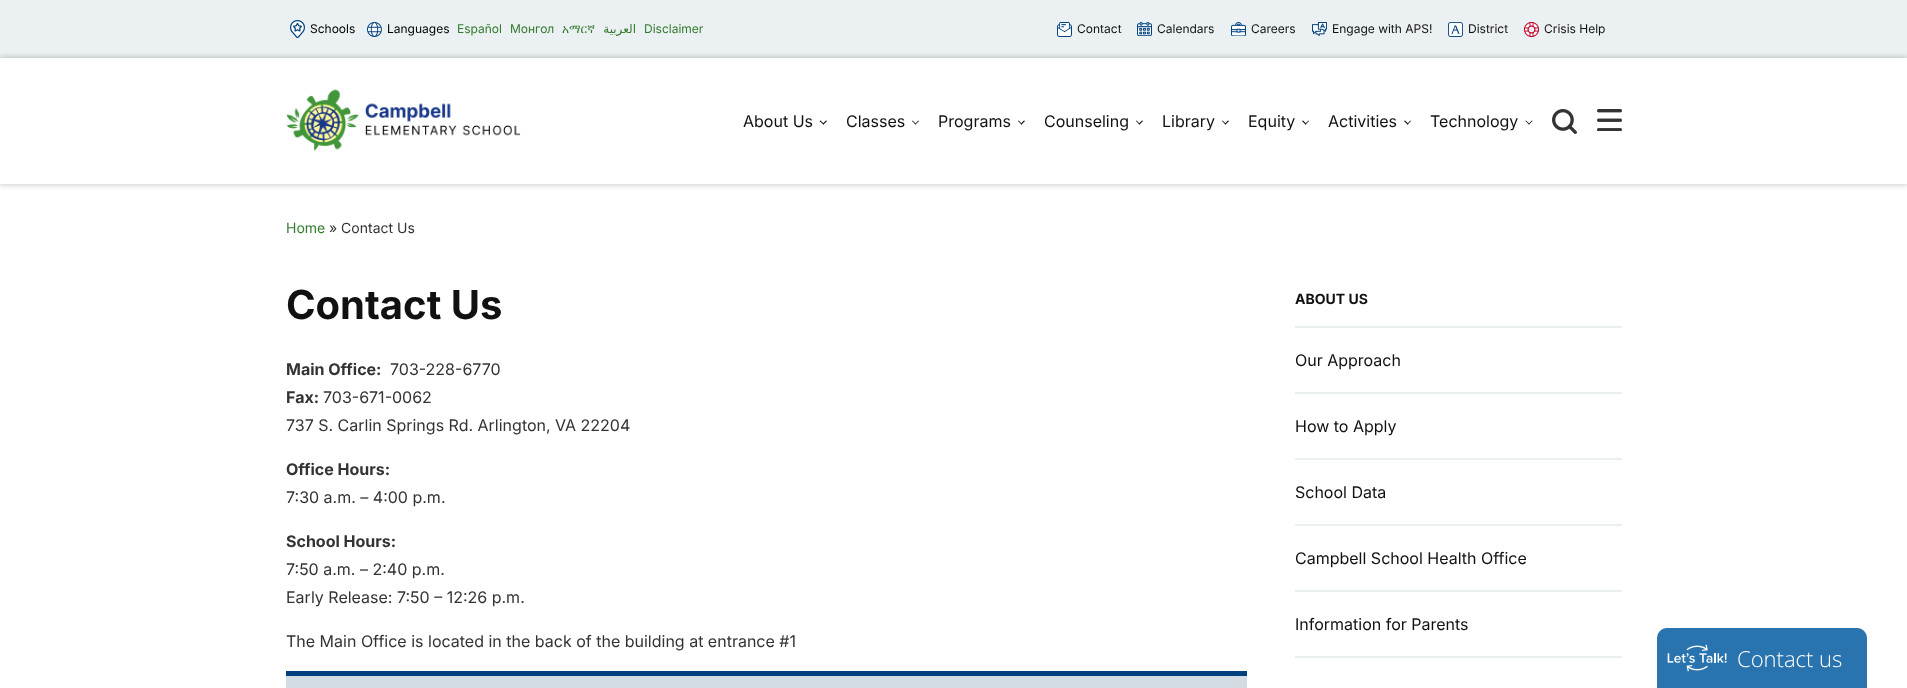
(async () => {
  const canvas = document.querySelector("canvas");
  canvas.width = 1907;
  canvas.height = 688;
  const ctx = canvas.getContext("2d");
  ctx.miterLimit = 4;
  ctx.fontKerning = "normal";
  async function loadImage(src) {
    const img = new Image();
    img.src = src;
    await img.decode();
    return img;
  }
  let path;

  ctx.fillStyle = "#ffffff";
  ctx.fillRect(0, 0, 1907, 688);
  ctx.fillStyle = "#ebf0f3";
  ctx.fillRect(0, 0, 1907, 58);
  ctx.drawImage(await loadImage("img/1.png"), 290, 20, 15, 18);
  ctx.drawImage(await loadImage("img/2.png"), 367, 22, 15, 15);
  ctx.drawImage(await loadImage("img/3.png"), 1057, 22, 15, 15);
  ctx.drawImage(await loadImage("img/4.png"), 1137, 22, 15, 14);
  ctx.drawImage(await loadImage("img/5.png"), 1231, 22, 15, 14);
  ctx.drawImage(await loadImage("img/6.png"), 1312, 22, 15, 14);
  ctx.drawImage(await loadImage("img/7.png"), 1448, 22, 15, 15);
  ctx.drawImage(await loadImage("img/8.png"), 1524, 22, 15, 15);
  ctx.save();
  path = new Path2D("M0 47H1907V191H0ZM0 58H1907V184H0Z");
  ctx.clip(path, "evenodd");
  ctx.fillStyle = "rgba(0, 0, 0, 0.13)";
  ctx.filter = "blur(2.5px)";
  ctx.beginPath();
  ctx.rect(0, 56, 1907, 126);
  ctx.fill();
  ctx.filter = "none";
  ctx.restore();
  ctx.save();
  path = new Path2D("M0 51H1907V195H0ZM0 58H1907V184H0Z");
  ctx.clip(path, "evenodd");
  ctx.fillStyle = "rgba(0, 0, 0, 0.13)";
  ctx.filter = "blur(2.5px)";
  ctx.beginPath();
  ctx.rect(0, 60, 1907, 126);
  ctx.fill();
  ctx.filter = "none";
  ctx.restore();
  ctx.drawImage(await loadImage("img/9.png"), 287, 89, 234, 62);
  ctx.fillStyle = "#000000";
  path = new Path2D("M826 120.5L827 121L823.5 124.5L822.5 124Z");
  ctx.fill(path);
  path = new Path2D("M820.5 120.5L824 124L823.5 124.5L819.5 121Z");
  ctx.fill(path);
  path = new Path2D("M918.5 120.5L919 121L915.5 124.5L915 124Z");
  ctx.fill(path);
  path = new Path2D("M912.5 120.5L916 124L915.5 124.5L912 121Z");
  ctx.fill(path);
  path = new Path2D("M1024 120.5L1025 121L1021.5 124.5L1020.5 124Z");
  ctx.fill(path);
  path = new Path2D("M1018.5 120.5L1022 124L1021.5 124.5L1018 121Z");
  ctx.fill(path);
  path = new Path2D("M1142 120.5L1143 121L1139.5 124.5L1138.5 124Z");
  ctx.fill(path);
  path = new Path2D("M1136.5 120.5L1140 124L1139.5 124.5L1136 121Z");
  ctx.fill(path);
  path = new Path2D("M1228 120.5L1229 121L1225.5 124.5L1224.5 124Z");
  ctx.fill(path);
  path = new Path2D("M1222.5 120.5L1226 124L1225.5 124.5L1222 121Z");
  ctx.fill(path);
  path = new Path2D("M1308.5 120.5L1309 121L1305.5 124.5L1305 124Z");
  ctx.fill(path);
  path = new Path2D("M1303 120.5L1306.5 124L1305.5 124.5L1302 121Z");
  ctx.fill(path);
  path = new Path2D("M1410.5 120.5L1411 121L1407.5 124.5L1407 124Z");
  ctx.fill(path);
  path = new Path2D("M1405 120.5L1408.5 124L1407.5 124.5L1404 121Z");
  ctx.fill(path);
  path = new Path2D("M1532 120.5L1532.5 121L1529 124.5L1528.5 124Z");
  ctx.fill(path);
  path = new Path2D("M1526 120.5L1529.5 124L1529 124.5L1525.5 121Z");
  ctx.fill(path);
  ctx.drawImage(await loadImage("img/10.png"), 1552, 109, 25, 25);
  ctx.drawImage(await loadImage("img/11.png"), 1597, 109, 25, 22);
  for (const [x, y, w, h, color] of [
    [286, 676, 961, 12, "#d2dce2"],
    [286, 671, 961, 5, "#00407c"],
    [1295, 326, 327, 2, "#e9eef1"],
    [1295, 392, 327, 2, "#e9eef1"],
    [1295, 458, 327, 2, "#e9eef1"],
    [1295, 524, 327, 2, "#e9eef1"],
    [1295, 590, 327, 2, "#e9eef1"],
    [1295, 656, 327, 2, "#e9eef1"],
  ]) {
    ctx.fillStyle = color;
    ctx.fillRect(x, y, w, h);
  }
  ctx.fillStyle = "rgba(0, 0, 0, 0.22)";
  ctx.filter = "blur(0.5px)";
  ctx.beginPath();
  ctx.roundRect(1657, 628, 210, 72, 10);
  ctx.fill();
  ctx.filter = "none";
  ctx.fillStyle = "#2974ae";
  ctx.beginPath();
  ctx.roundRect(1657, 628, 210, 60, [10, 10, 0, 0]);
  ctx.fill();
  ctx.drawImage(await loadImage("img/12.png"), 1667, 644, 60, 28);
  ctx.font = "12px Inter";
  ctx.fillStyle = "#000000";
  ctx.fillText("Schools", 310, 33);
  ctx.fillText("Languages", 387, 33);
  ctx.fillStyle = "#347b2d";
  ctx.fillText("Español", 457, 33);
  ctx.fillText("Монгол", 510, 33);
  ctx.font = "12px FreeSerif";
  ctx.fillText("አማርኛ", 562, 33);
  ctx.direction = "rtl";
  ctx.font = "12px DejaVu Sans";
  ctx.fillText("العربية", 636, 33);
  ctx.direction = "ltr";
  ctx.font = "12px Inter";
  ctx.fillText("Disclaimer", 644, 33);
  ctx.fillStyle = "#111111";
  for (const [text, x, y] of [
    ["Contact", 1077, 33],
    ["Calendars", 1157, 33],
    ["Careers", 1251, 33],
    ["Engage with APS!", 1332, 33],
    ["District", 1468, 33],
    ["Crisis Help", 1544, 33],
  ]) {
    ctx.fillText(text, x, y);
  }
  ctx.font = "16px Inter";
  for (const [text, x, y] of [
    ["About Us", 743, 127],
    ["Classes", 846, 127],
    ["Programs", 938, 127],
    ["Counseling", 1044, 127],
    ["Library", 1162, 127],
    ["Equity", 1248, 127],
    ["Activities", 1328, 127],
    ["Technology", 1430, 127],
  ]) {
    ctx.fillText(text, x, y);
  }
  ctx.font = "14px Inter";
  ctx.fillStyle = "#347b2d";
  ctx.fillText("Home", 286, 233);
  ctx.fillStyle = "#333333";
  ctx.fillText("» Contact Us", 329, 233);
  ctx.font = "bold 40px Inter";
  ctx.fillStyle = "#111111";
  ctx.fillText("Contact Us", 286, 319);
  ctx.font = "bold 16px Inter";
  ctx.fillStyle = "#333333";
  ctx.fillText("Main Office:", 286, 375);
  ctx.font = "16px Inter";
  ctx.fillText("703-228-6770", 390, 375);
  ctx.font = "bold 16px Inter";
  ctx.fillText("Fax:", 286, 403);
  ctx.font = "16px Inter";
  ctx.fillText("703-671-0062", 323, 403);
  ctx.fillText("737 S. Carlin Springs Rd. Arlington, VA 22204", 286, 431);
  ctx.font = "bold 16px Inter";
  ctx.fillText("Office Hours:", 286, 475);
  ctx.font = "16px Inter";
  ctx.fillText("7:30 a.m. – 4:00 p.m.", 286, 503);
  ctx.font = "bold 16px Inter";
  ctx.fillText("School Hours:", 286, 547);
  ctx.font = "16px Inter";
  for (const [text, x, y] of [
    ["7:50 a.m. – 2:40 p.m.", 286, 575],
    ["Early Release: 7:50 – 12:26 p.m.", 286, 603],
    ["The Main Office is located in the back of the building at entrance #1", 286, 647],
  ]) {
    ctx.fillText(text, x, y);
  }
  ctx.font = "bold 14px Inter";
  ctx.fillStyle = "#111111";
  ctx.fillText("ABOUT US", 1295, 304);
  ctx.font = "16px Inter";
  for (const [text, x, y] of [
    ["Our Approach", 1295, 366],
    ["How to Apply", 1295, 432],
    ["School Data", 1295, 498],
    ["Campbell School Health Office", 1295, 564],
    ["Information for Parents", 1295, 630],
  ]) {
    ctx.fillText(text, x, y);
  }
  ctx.font = "300 22px Open Sans";
  ctx.fillStyle = "#ffffff";
  ctx.fillText("Contact us", 1737, 667);
})();
